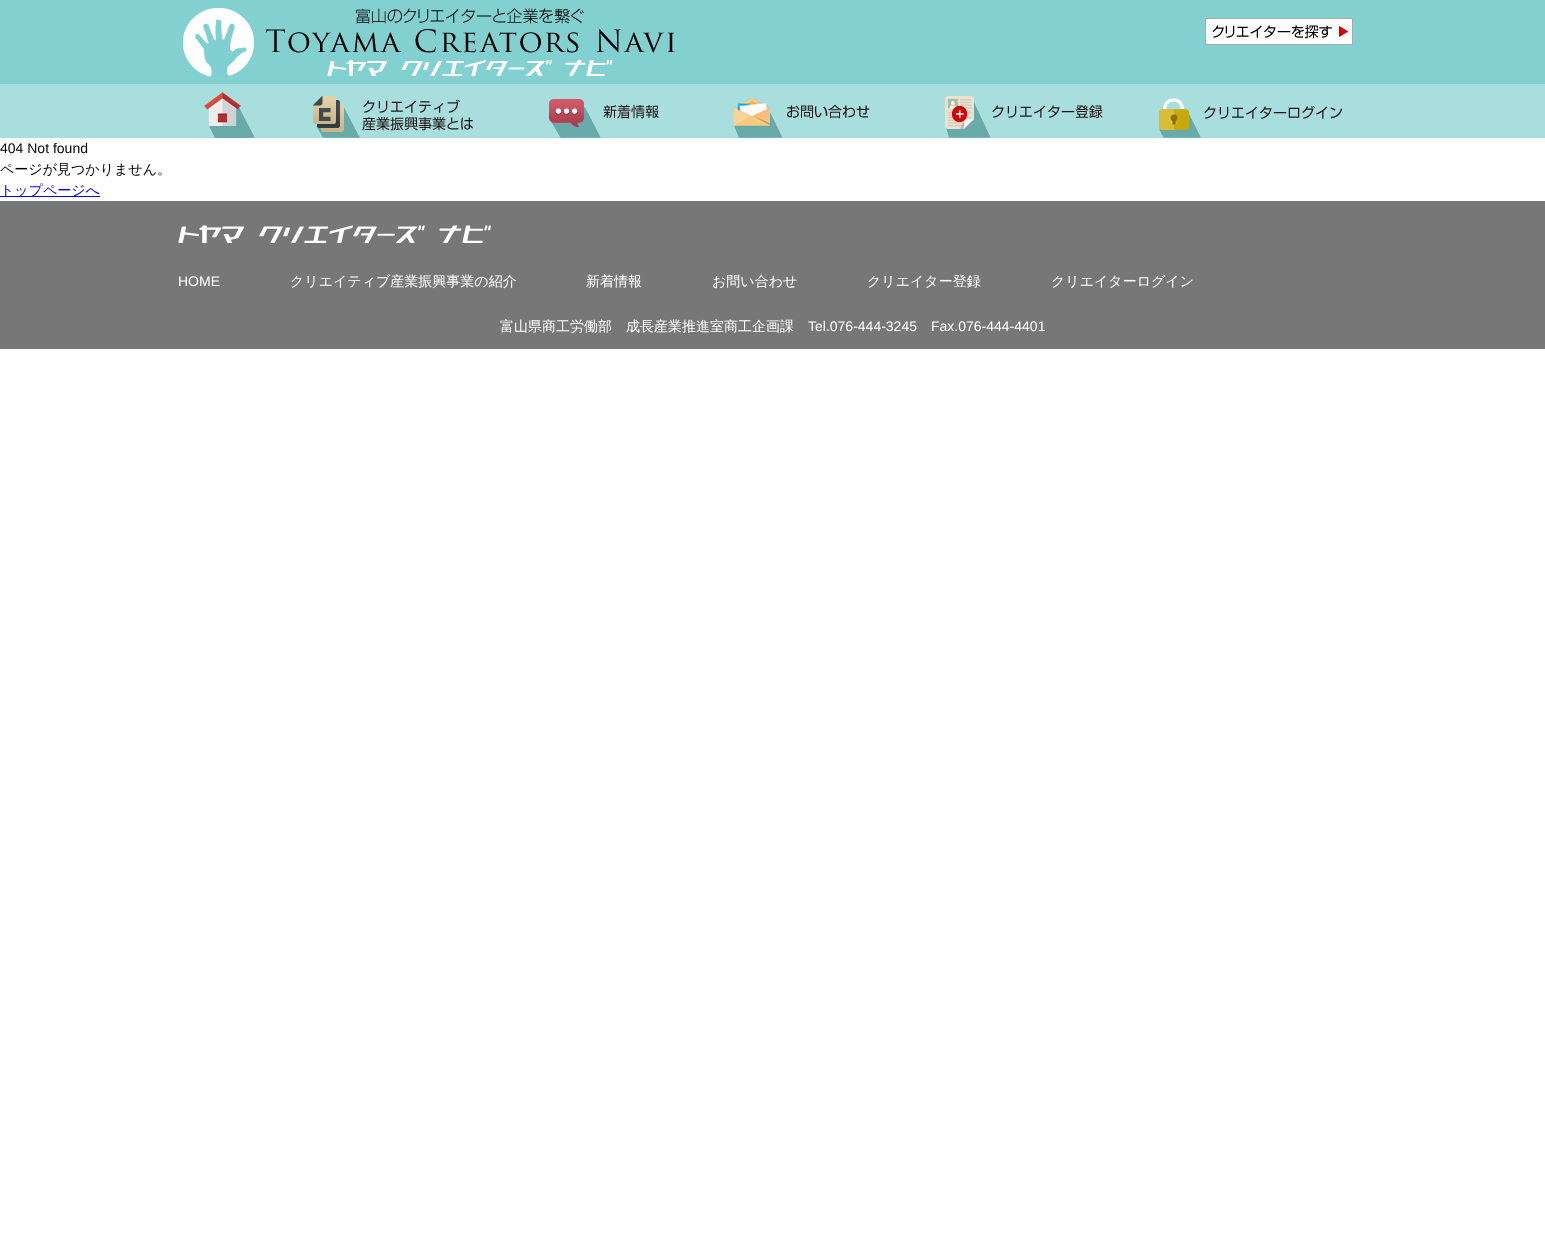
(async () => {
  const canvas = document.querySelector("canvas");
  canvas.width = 1545;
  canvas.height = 1251;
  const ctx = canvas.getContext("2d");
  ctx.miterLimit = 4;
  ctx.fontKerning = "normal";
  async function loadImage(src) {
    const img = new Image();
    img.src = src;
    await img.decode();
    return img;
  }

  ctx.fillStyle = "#ffffff";
  ctx.fillRect(0, 0, 1545, 1251);
  ctx.fillStyle = "#83d0d0";
  ctx.fillRect(0, 0, 1545, 84);
  ctx.drawImage(await loadImage("img/1.png"), 183, 8, 492, 69);
  ctx.drawImage(await loadImage("img/2.png"), 1205, 18, 148, 27);
  ctx.fillStyle = "#a8dede";
  ctx.fillRect(0, 84, 1545, 54);
  ctx.drawImage(await loadImage("img/3.png"), 204, 92, 51, 46);
  ctx.drawImage(await loadImage("img/4.png"), 313, 96, 160, 42);
  ctx.drawImage(await loadImage("img/5.png"), 549, 99, 110, 39);
  ctx.drawImage(await loadImage("img/6.png"), 734, 98, 136, 40);
  ctx.drawImage(await loadImage("img/7.png"), 945, 96, 158, 42);
  ctx.drawImage(await loadImage("img/8.png"), 1159, 98, 184, 40);
  ctx.fillStyle = "#0000ee";
  ctx.fillRect(0, 196, 100, 1);
  ctx.fillStyle = "#777777";
  ctx.fillRect(0, 201, 1545, 148);
  ctx.drawImage(await loadImage("img/9.png"), 178, 225, 313, 18);
  ctx.font = "14px Liberation Sans";
  ctx.fillStyle = "#000000";
  ctx.fillText("404 Not found", 0, 153);
  ctx.font = "500 14px WenQuanYi Zen Hei";
  ctx.fillText("ページが見つかりません。", 0, 174);
  ctx.fillStyle = "#0000ee";
  ctx.fillText("トップページへ", 0, 195);
  ctx.font = "14px Liberation Sans";
  ctx.fillStyle = "#ffffff";
  ctx.fillText("HOME", 178, 286);
  ctx.font = "500 14px WenQuanYi Zen Hei";
  for (const [text, x, y] of [
    ["クリエイティブ産業振興事業の紹介", 290, 286],
    ["新着情報", 586, 286],
    ["お問い合わせ", 712, 286],
    ["クリエイター登録", 867, 286],
    ["クリエイターログイン", 1051, 286],
    ["富山県商工労働部　成長産業推進室商工企画課", 500, 331],
  ]) {
    ctx.fillText(text, x, y);
  }
  ctx.font = "14px Liberation Sans";
  ctx.fillText("Tel.076-444-3245", 808, 331);
  ctx.fillText("Fax.076-444-4401", 931, 331);
})();
